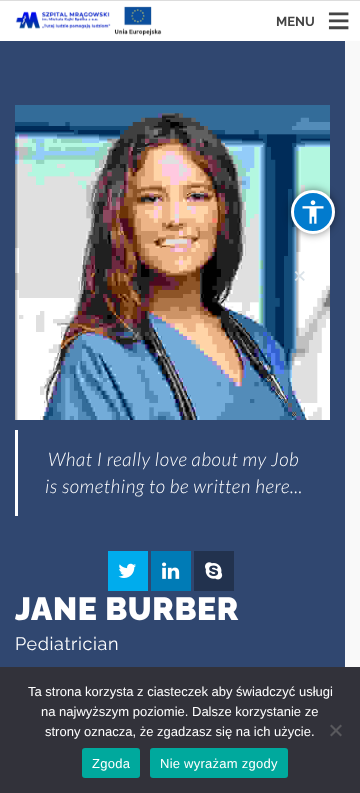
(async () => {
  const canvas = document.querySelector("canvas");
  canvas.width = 360;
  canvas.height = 793;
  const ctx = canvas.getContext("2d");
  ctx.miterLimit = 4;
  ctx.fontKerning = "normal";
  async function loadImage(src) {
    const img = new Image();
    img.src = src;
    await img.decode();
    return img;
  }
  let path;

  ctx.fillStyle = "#f9f9f9";
  ctx.fillRect(0, 0, 360, 793);
  ctx.fillStyle = "#304770";
  ctx.fillRect(0, 41, 345, 626);
  ctx.fillStyle = "rgba(0, 0, 0, 0.2)";
  ctx.filter = "blur(0.5px)";
  ctx.beginPath();
  ctx.rect(0, 0, 360, 41);
  ctx.fill();
  ctx.filter = "none";
  ctx.fillStyle = "#ffffff";
  ctx.fillRect(0, 1, 360, 40);
  ctx.fillStyle = "#dddddd";
  ctx.fillRect(0, 0, 360, 1);
  ctx.drawImage(await loadImage("img/1.png"), 15, 6, 147, 30);
  ctx.drawImage(await loadImage("img/2.png"), 15, 105, 315, 315);
  ctx.fillStyle = "#ffffff";
  ctx.fillRect(15, 430, 3, 86);
  ctx.fillStyle = "#00aced";
  ctx.fillRect(108, 551, 40, 40);
  ctx.drawImage(await loadImage("img/3.png"), 118, 563, 18, 15);
  ctx.fillStyle = "#007bb6";
  ctx.fillRect(151, 551, 40, 40);
  ctx.drawImage(await loadImage("img/4.png"), 162, 562, 18, 17);
  ctx.fillStyle = "#22324e";
  ctx.fillRect(194, 551, 40, 40);
  ctx.drawImage(await loadImage("img/5.png"), 205, 562, 18, 18);
  ctx.fillStyle = "#32323a";
  ctx.fillRect(0, 667, 360, 126);
  ctx.fillStyle = "#59595d";
  path = new Path2D("M340.5 724.5L342 726L331.5 736.5L330 735Z");
  ctx.fill(path);
  path = new Path2D("M330 726L331.5 724.5L342 735L340.5 736.5Z");
  ctx.fill(path);
  ctx.fillStyle = "#00a99d";
  ctx.beginPath();
  ctx.roundRect(82, 748, 58, 30, 3);
  ctx.fill();
  ctx.beginPath();
  ctx.roundRect(150, 748, 138, 30, 3);
  ctx.fill();
  ctx.fillStyle = "rgba(0, 0, 0, 0.5)";
  ctx.filter = "blur(4.5px)";
  ctx.beginPath();
  ctx.roundRect(291, 190, 44, 44, 22);
  ctx.fill();
  ctx.filter = "none";
  ctx.fillStyle = "#027bce";
  ctx.beginPath();
  ctx.arc(313, 212, 20.5, 0, Math.PI * 2);
  ctx.fill();
  ctx.strokeStyle = "#ffffff";
  ctx.lineWidth = 3;
  ctx.stroke();
  ctx.drawImage(await loadImage("img/6.png"), 302, 200, 22, 24);
  ctx.font = "bold 13px Raleway";
  ctx.fillStyle = "#444444";
  ctx.fillText("MENU", 276, 26);
  ctx.font = "bold 40px Liberation Sans";
  ctx.fillText("≡", 327, 34);
  ctx.letterSpacing = "0.6px";
  ctx.font = "italic 300 18.75px Lato";
  ctx.fillStyle = "#ffffff";
  ctx.fillText("What I really love about my Job", 48, 466);
  ctx.fillText("is something to be written here...", 45, 493);
  ctx.font = "900 32px Raleway";
  ctx.fillText("JANE BURBER", 15, 620);
  ctx.font = "18px Raleway";
  ctx.fillText("Pediatrician", 15, 650);
  ctx.letterSpacing = "0px";
  ctx.font = "bold 24px Liberation Serif";
  ctx.fillStyle = "#dbe3e9";
  ctx.fillText("×", 293, 284);
  ctx.font = "13px Liberation Sans";
  ctx.fillStyle = "#ffffff";
  for (const [text, x, y] of [
    ["Ta strona korzysta z ciasteczek aby świadczyć usługi", 28, 696],
    ["na najwyższym poziomie. Dalsze korzystanie ze", 41, 716],
    ["strony oznacza, że zgadzasz się na ich użycie.", 45, 736],
  ]) {
    ctx.fillText(text, x, y);
  }
  ctx.letterSpacing = "0.25px";
  ctx.fillText("Zgoda", 92, 768);
  ctx.fillText("Nie wyrażam zgody", 160, 768);
})();
